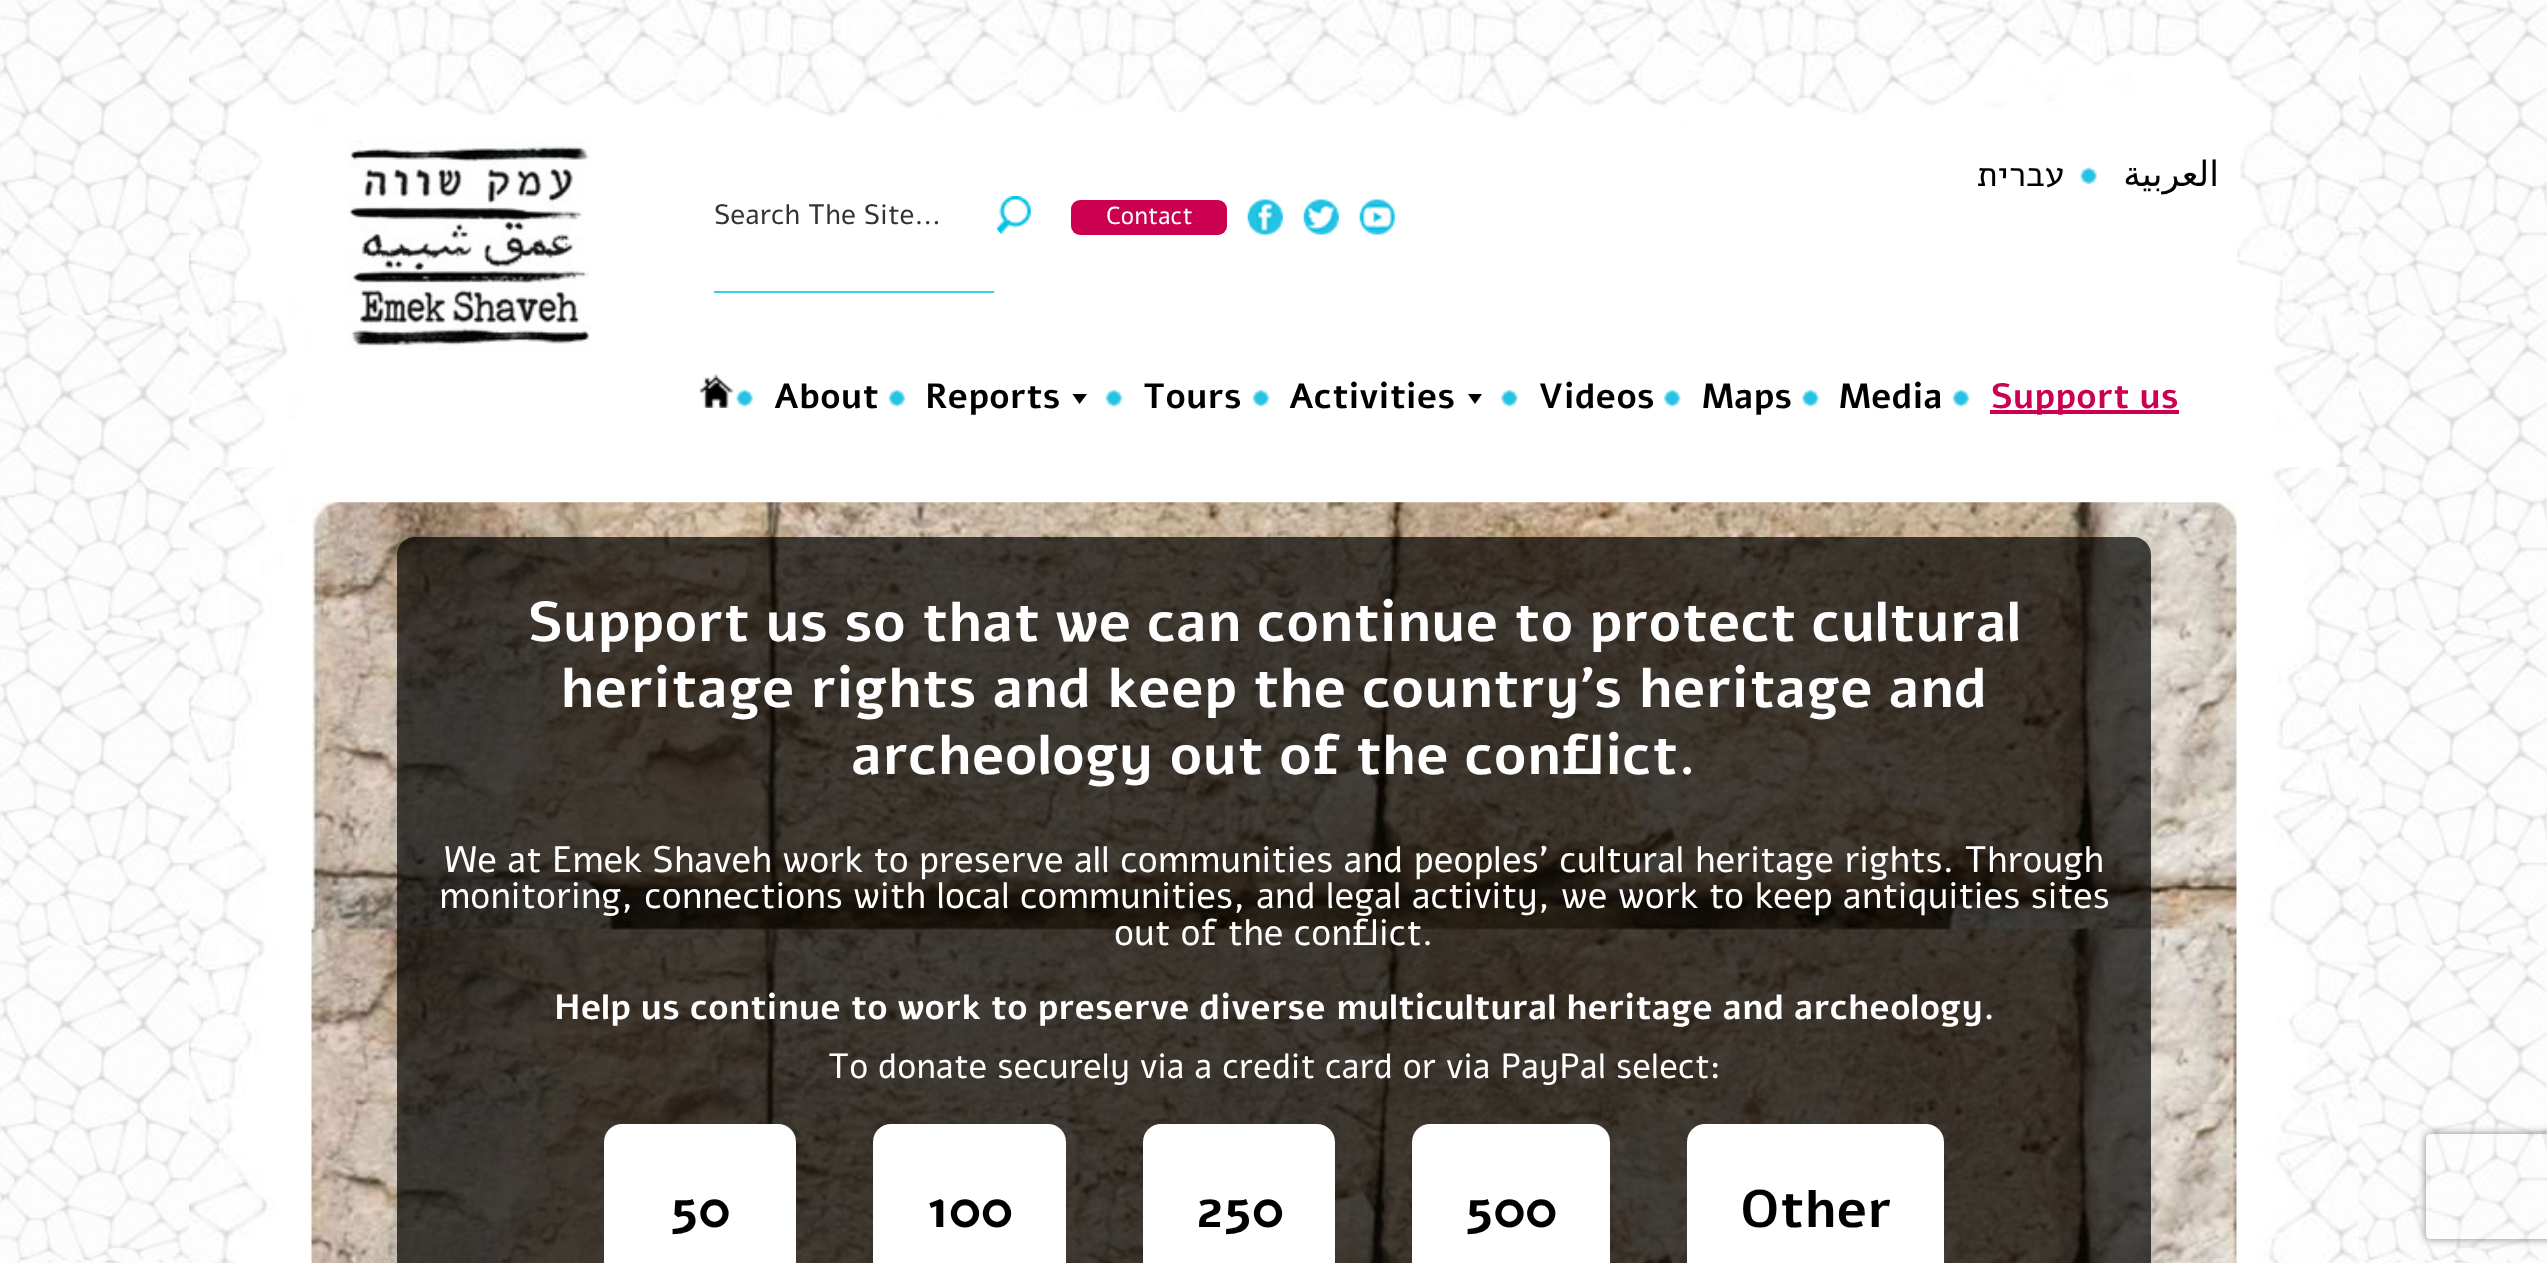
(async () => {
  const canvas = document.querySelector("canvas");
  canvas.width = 2547;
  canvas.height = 1263;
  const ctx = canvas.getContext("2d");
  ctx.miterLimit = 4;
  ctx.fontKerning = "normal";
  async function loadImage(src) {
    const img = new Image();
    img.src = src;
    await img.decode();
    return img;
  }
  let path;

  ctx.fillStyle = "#ffffff";
  ctx.fillRect(0, 0, 2547, 1263);
  ctx.drawImage(await loadImage("img/1.png"), 0, 0, 2547, 1263);
  ctx.drawImage(await loadImage("img/2.png"), 189, 0, 2170, 468);
  ctx.fillRect(376, 123, 1861, 199);
  ctx.drawImage(await loadImage("img/3.png"), 347, 140, 244, 210);
  ctx.drawImage(await loadImage("img/4.png"), 2080, 167, 17, 18);
  ctx.fillStyle = "#37cee9";
  ctx.fillRect(714, 291, 280, 2);
  ctx.drawImage(await loadImage("img/5.png"), 996, 196, 35, 39);
  ctx.fillStyle = "#cb0050";
  ctx.beginPath();
  ctx.roundRect(1071, 200, 156, 35, 9);
  ctx.fill();
  ctx.drawImage(await loadImage("img/6.png"), 1247, 199, 36, 36);
  ctx.drawImage(await loadImage("img/7.png"), 1303, 199, 36, 36);
  ctx.drawImage(await loadImage("img/8.png"), 1359, 199, 36, 36);
  ctx.drawImage(await loadImage("img/9.png"), 736, 389, 17, 18);
  ctx.drawImage(await loadImage("img/10.png"), 699, 374, 35, 34);
  ctx.drawImage(await loadImage("img/11.png"), 888, 389, 18, 18);
  ctx.drawImage(await loadImage("img/11.png"), 1105, 389, 18, 18);
  ctx.fillStyle = "#000000";
  path = new Path2D("M1087 394L1079.5 404L1072.5 394Z");
  ctx.fill(path);
  ctx.drawImage(await loadImage("img/11.png"), 1252, 389, 18, 18);
  ctx.drawImage(await loadImage("img/12.png"), 1501, 389, 17, 18);
  path = new Path2D("M1482 394L1475 404L1468 394Z");
  ctx.fill(path);
  ctx.drawImage(await loadImage("img/13.png"), 1663, 389, 18, 18);
  ctx.drawImage(await loadImage("img/14.png"), 1802, 389, 17, 18);
  ctx.drawImage(await loadImage("img/15.png"), 1952, 389, 18, 18);
  ctx.fillStyle = "#cb0050";
  ctx.fillRect(1990, 410, 189, 4);
  ctx.drawImage(await loadImage("img/16.png"), 189, 467, 2170, 1);
  ctx.drawImage(await loadImage("img/17.png"), 189, 467, 2170, 796);
  ctx.drawImage(await loadImage("img/18.png"), 311, 502, 1926, 761);
  ctx.fillStyle = "rgba(0, 0, 0, 0.7)";
  ctx.beginPath();
  ctx.roundRect(397, 537, 1754, 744, 18);
  ctx.fill();
  ctx.fillStyle = "#ffffff";
  ctx.beginPath();
  ctx.roundRect(604, 1124, 192, 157, 18);
  ctx.fill();
  ctx.beginPath();
  ctx.roundRect(873, 1124, 193, 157, 18);
  ctx.fill();
  ctx.beginPath();
  ctx.roundRect(1143, 1124, 192, 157, 18);
  ctx.fill();
  ctx.beginPath();
  ctx.roundRect(1412, 1124, 198, 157, 18);
  ctx.fill();
  ctx.beginPath();
  ctx.roundRect(1687, 1124, 257, 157, 18);
  ctx.fill();
  ctx.save();
  path = new Path2D("M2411 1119H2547V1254H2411ZM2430 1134H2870C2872 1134 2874 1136 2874 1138V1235C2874 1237 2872 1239 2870 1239H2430C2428 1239 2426 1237 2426 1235V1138C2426 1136 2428 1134 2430 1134Z");
  ctx.clip(path, "evenodd");
  ctx.fillStyle = "#808080";
  ctx.filter = "blur(4.5px)";
  ctx.beginPath();
  ctx.roundRect(2426, 1134, 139, 105, 4);
  ctx.fill();
  ctx.filter = "none";
  ctx.restore();
  ctx.direction = "rtl";
  ctx.font = "35px Alef";
  ctx.fillStyle = "#000000";
  ctx.fillText("עברית", 2064, 186);
  ctx.font = "35px DejaVu Sans";
  ctx.fillText("العربية", 2219, 186);
  ctx.direction = "ltr";
  ctx.font = "28px Alef";
  ctx.fillStyle = "#333333";
  ctx.fillText("Search The Site...", 714, 224);
  ctx.font = "24.5px Alef";
  ctx.fillStyle = "#ffffff";
  ctx.fillText("Contact", 1106, 224);
  ctx.font = "bold 35px Alef";
  ctx.fillStyle = "#000000";
  for (const [text, x, y] of [
    ["About", 774, 408],
    ["Reports", 925, 408],
    ["Tours", 1143, 408],
    ["Activities", 1289, 408],
    ["Videos", 1538, 408],
    ["Maps", 1702, 408],
    ["Media", 1839, 408],
  ]) {
    ctx.fillText(text, x, y);
  }
  ctx.fillStyle = "#cb0050";
  ctx.fillText("Support us", 1991, 408);
  ctx.font = "bold 56px Alef";
  ctx.fillStyle = "#ffffff";
  for (const [text, x, y] of [
    ["Support us so that we can continue to protect cultural", 528, 641],
    ["heritage rights and keep the country’s heritage and", 560, 707],
    ["archeology out of the conflict.", 851, 774],
  ]) {
    ctx.fillText(text, x, y);
  }
  ctx.font = "36.75px Alef";
  for (const [text, x, y] of [
    ["We at Emek Shaveh work to preserve all communities and peoples’ cultural heritage rights. Through", 444, 872],
    ["monitoring, connections with local communities, and legal activity, we work to keep antiquities sites", 439, 908],
    ["out of the conflict.", 1114, 945],
  ]) {
    ctx.fillText(text, x, y);
  }
  ctx.font = "bold 35px Alef";
  ctx.fillText("Help us continue to work to preserve diverse multicultural heritage and archeology.", 554, 1019);
  ctx.font = "35px Alef";
  ctx.fillText("To donate securely via a credit card or via PayPal select:", 828, 1078);
  ctx.font = "bold 52.5px Alef";
  ctx.fillStyle = "#000000";
  for (const [text, x, y] of [
    ["50", 670, 1227],
    ["100", 927, 1227],
    ["250", 1196, 1227],
    ["500", 1465, 1227],
    ["Other", 1740, 1227],
  ]) {
    ctx.fillText(text, x, y);
  }
})();
